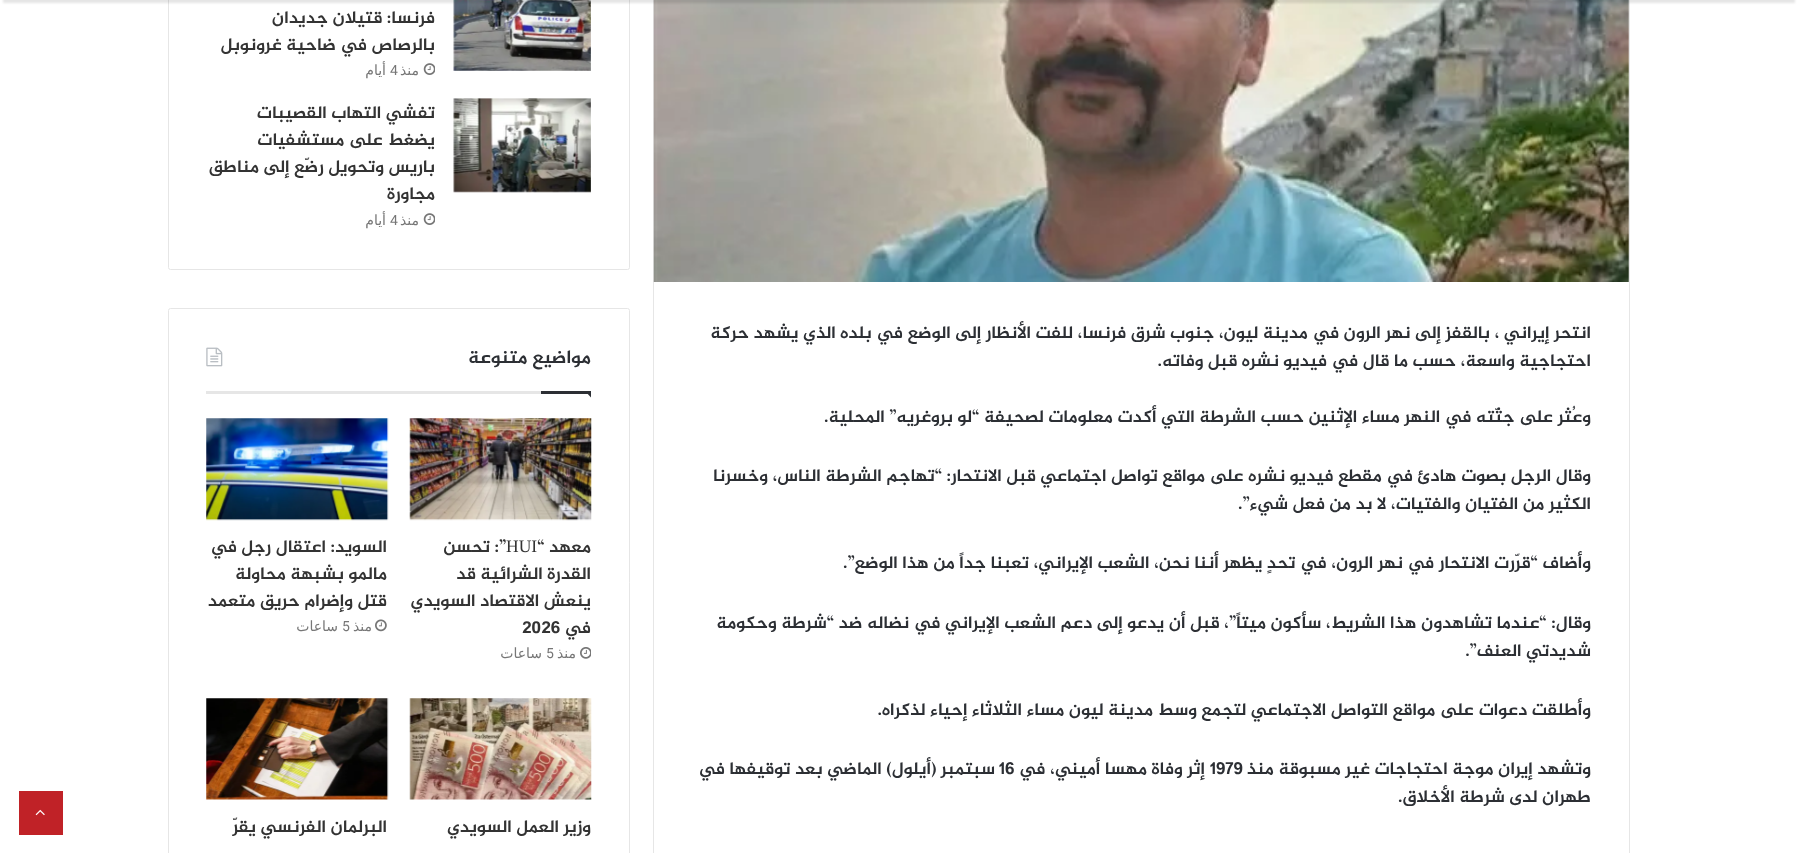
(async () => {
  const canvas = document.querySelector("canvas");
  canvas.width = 1797;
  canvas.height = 853;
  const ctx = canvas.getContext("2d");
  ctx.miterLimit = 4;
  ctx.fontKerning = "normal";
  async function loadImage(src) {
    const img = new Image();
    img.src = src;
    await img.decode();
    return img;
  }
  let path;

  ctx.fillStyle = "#ffffff";
  ctx.fillRect(0, 0, 1797, 853);
  ctx.strokeStyle = "#e6e6e6";
  ctx.strokeRect(653.5, -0.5, 976, 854);
  ctx.drawImage(await loadImage("img/1.png"), 653, 0, 976, 282);
  ctx.beginPath();
  ctx.roundRect(168.5, -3.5, 461, 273, 2);
  ctx.stroke();
  ctx.drawImage(await loadImage("img/2.png"), 453, 0, 138, 71);
  ctx.fillStyle = "rgba(0, 0, 0, 0.1)";
  ctx.filter = "blur(1px)";
  ctx.beginPath();
  ctx.rect(3, -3, 1792, 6);
  ctx.fill();
  ctx.filter = "none";
  ctx.drawImage(await loadImage("img/3.png"), 423, 63, 12, 12);
  ctx.drawImage(await loadImage("img/4.png"), 453, 98, 138, 95);
  ctx.drawImage(await loadImage("img/3.png"), 423, 213, 12, 12);
  ctx.beginPath();
  ctx.roundRect(168.5, 308.5, 461, 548, 2);
  ctx.stroke();
  ctx.fillStyle = "#e6e6e6";
  ctx.fillRect(206, 391, 335, 3);
  ctx.drawImage(await loadImage("img/5.png"), 206, 347, 17, 20);
  ctx.fillStyle = "#2c2f34";
  path = new Path2D("M585 391H591V397.5Z");
  ctx.fill(path);
  ctx.fillRect(541, 391, 50, 3);
  ctx.drawImage(await loadImage("img/6.png"), 409, 418, 183, 103);
  ctx.drawImage(await loadImage("img/7.png"), 580, 647, 11, 12);
  ctx.drawImage(await loadImage("img/8.png"), 206, 418, 183, 103);
  ctx.drawImage(await loadImage("img/9.png"), 375, 619, 12, 13);
  ctx.drawImage(await loadImage("img/10.png"), 409, 698, 183, 102);
  ctx.drawImage(await loadImage("img/11.png"), 206, 698, 183, 102);
  ctx.fillStyle = "#c02227";
  ctx.fillRect(19, 791, 44, 44);
  ctx.drawImage(await loadImage("img/12.png"), 35, 809, 10, 7);
  ctx.direction = "rtl";
  ctx.font = "bold 17.5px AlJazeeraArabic";
  ctx.fillStyle = "#2c2f34";
  for (const [text, x, y] of [
    ["انتحر إيراني ، بالقفز إلى نهر الرون في مدينة ليون، جنوب شرق فرنسا، للفت الأنظار إلى الوضع في بلده الذي يشهد حركة", 1591, 338],
    ["احتجاجية واسعة، حسب ما قال في فيديو نشره قبل وفاته.", 1591, 366],
    ["وعُثر على جثّته في النهر مساء الإثنين حسب الشرطة التي أكدت معلومات لصحيفة “لو بروغريه” المحلية.", 1591, 422],
    ["وقال الرجل بصوت هادئ في مقطع فيديو نشره على مواقع تواصل اجتماعي قبل الانتحار: “تهاجم الشرطة الناس، وخسرنا", 1591, 481],
    ["الكثير من الفتيان والفتيات، لا بد من فعل شيء”.", 1591, 509],
    ["وأضاف “قرّرت الانتحار في نهر الرون، في تحدٍ يظهر أننا نحن، الشعب الإيراني، تعبنا جداً من هذا الوضع”.", 1591, 568],
    ["وقال: “عندما تشاهدون هذا الشريط، سأكون ميتاً”، قبل أن يدعو إلى دعم الشعب الإيراني في نضاله ضد “شرطة وحكومة", 1591, 628],
    ["شديدتي العنف”.", 1591, 656],
    ["وأطلقت دعوات على مواقع التواصل الاجتماعي لتجمع وسط مدينة ليون مساء الثلاثاء إحياء لذكراه.", 1591, 715],
    ["وتشهد إيران موجة احتجاجات غير مسبوقة منذ", 1591, 774],
  ]) {
    ctx.fillText(text, x, y);
  }
  ctx.direction = "ltr";
  ctx.fillText("1979", 1210, 774);
  ctx.direction = "rtl";
  ctx.fillText("إثر وفاة مهسا أميني، في", 1205, 774);
  ctx.direction = "ltr";
  ctx.fillText("16", 999, 774);
  ctx.direction = "rtl";
  ctx.fillText("سبتمبر (أيلول) الماضي بعد توقيفها في", 995, 774);
  ctx.fillText("طهران لدى شرطة الأخلاق.", 1591, 802);
  ctx.fillStyle = "#333333";
  ctx.fillText("فرنسا: قتيلان جديدان", 435, 23);
  ctx.fillText("بالرصاص في ضاحية غرونوبل", 435, 50);
  ctx.font = "14px DejaVu Sans";
  ctx.fillStyle = "#767676";
  ctx.fillText("منذ", 419, 75);
  ctx.direction = "ltr";
  ctx.font = "14px Roboto";
  ctx.fillText("4", 390, 75);
  ctx.direction = "rtl";
  ctx.font = "14px DejaVu Sans";
  ctx.fillText("أيام", 386, 75);
  ctx.font = "bold 17.5px AlJazeeraArabic";
  ctx.fillStyle = "#333333";
  for (const [text, x, y] of [
    ["تفشي التهاب القصيبات", 435, 118],
    ["يضغط على مستشفيات", 435, 145],
    ["باريس وتحويل رضّع إلى مناطق", 435, 172],
    ["مجاورة", 435, 199],
  ]) {
    ctx.fillText(text, x, y);
  }
  ctx.font = "14px DejaVu Sans";
  ctx.fillStyle = "#767676";
  ctx.fillText("منذ", 419, 225);
  ctx.direction = "ltr";
  ctx.font = "14px Roboto";
  ctx.fillText("4", 390, 225);
  ctx.direction = "rtl";
  ctx.font = "14px DejaVu Sans";
  ctx.fillText("أيام", 386, 225);
  ctx.font = "bold 18.75px AlJazeeraArabic";
  ctx.fillStyle = "#2c2f34";
  ctx.fillText("مواضيع متنوعة", 591, 363);
  ctx.font = "bold 17.5px AlJazeeraArabic";
  ctx.fillStyle = "#333333";
  ctx.fillText("معهد “", 591, 552);
  ctx.direction = "ltr";
  ctx.font = "17.5px Liberation Serif";
  ctx.fillText("HUI", 506, 552);
  ctx.direction = "rtl";
  ctx.font = "bold 17.5px AlJazeeraArabic";
  for (const [text, x, y] of [
    ["”: تحسن", 506, 552],
    ["القدرة الشرائية قد", 591, 579],
    ["ينعش الاقتصاد السويدي", 591, 606],
    ["في", 591, 633],
  ]) {
    ctx.fillText(text, x, y);
  }
  ctx.direction = "ltr";
  ctx.fillText("2026", 522, 633);
  ctx.direction = "rtl";
  ctx.font = "14px DejaVu Sans";
  ctx.fillStyle = "#767676";
  ctx.fillText("منذ", 576, 658);
  ctx.direction = "ltr";
  ctx.font = "14px Roboto";
  ctx.fillText("5", 546, 658);
  ctx.direction = "rtl";
  ctx.font = "14px DejaVu Sans";
  ctx.fillText("ساعات", 542, 658);
  ctx.font = "bold 17.5px AlJazeeraArabic";
  ctx.fillStyle = "#333333";
  for (const [text, x, y] of [
    ["السويد: اعتقال رجل في", 387, 552],
    ["مالمو بشبهة محاولة", 387, 579],
    ["قتل وإضرام حريق متعمد", 387, 606],
  ]) {
    ctx.fillText(text, x, y);
  }
  ctx.font = "14px DejaVu Sans";
  ctx.fillStyle = "#767676";
  ctx.fillText("منذ", 372, 631);
  ctx.direction = "ltr";
  ctx.font = "14px Roboto";
  ctx.fillText("5", 342, 631);
  ctx.direction = "rtl";
  ctx.font = "14px DejaVu Sans";
  ctx.fillText("ساعات", 338, 631);
  ctx.font = "bold 17.5px AlJazeeraArabic";
  ctx.fillStyle = "#333333";
  ctx.fillText("وزير العمل السويدي", 591, 832);
  ctx.fillText("البرلمان الفرنسي يقرّ", 387, 832);
})();
